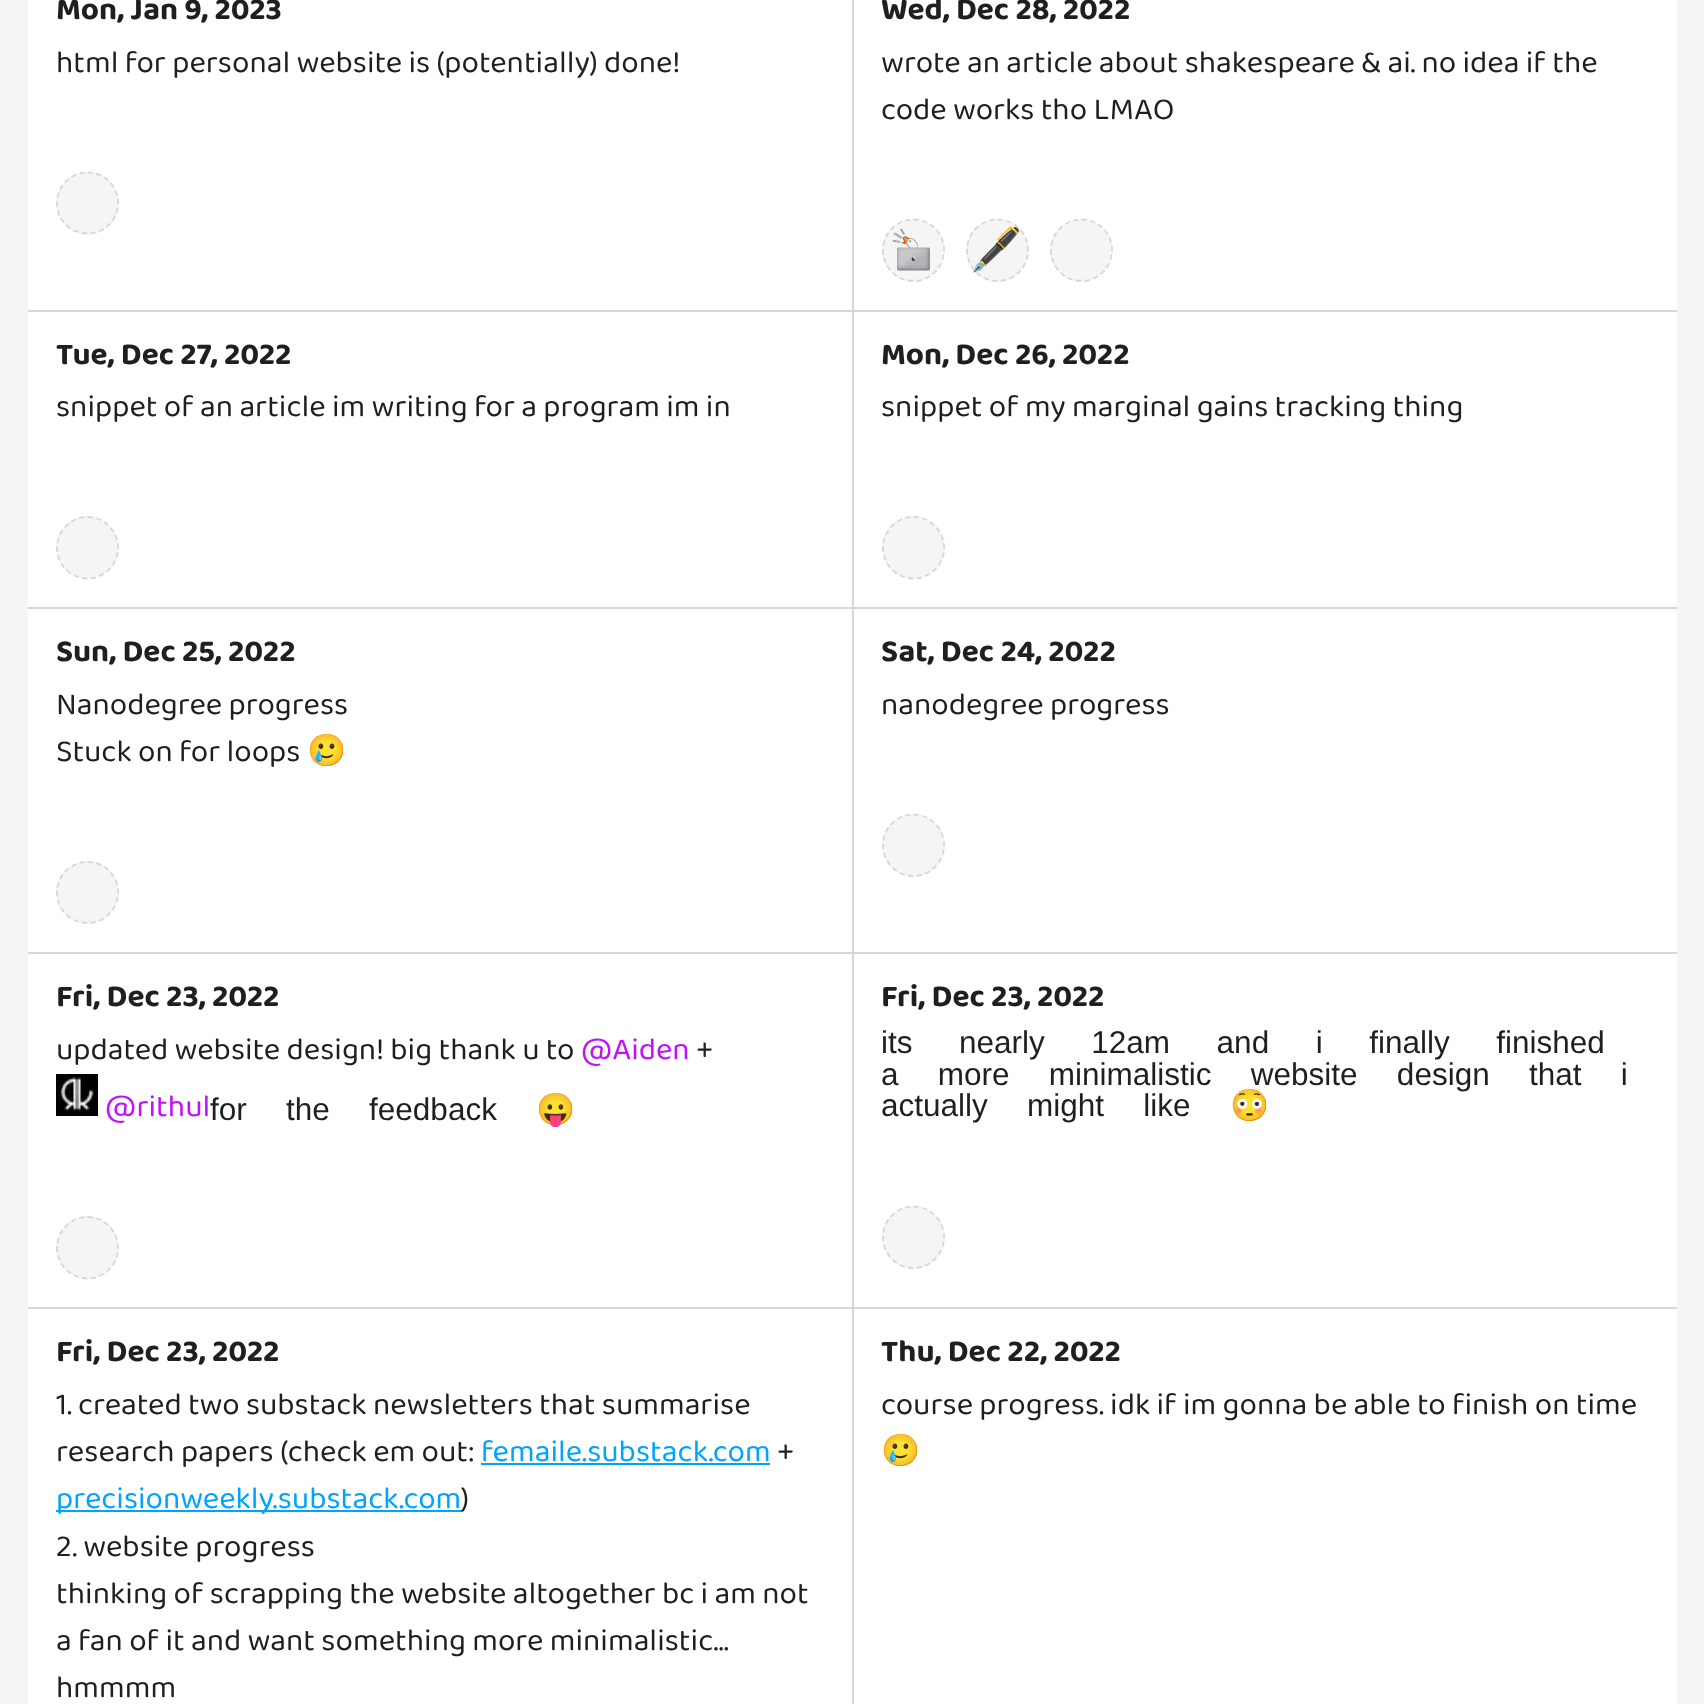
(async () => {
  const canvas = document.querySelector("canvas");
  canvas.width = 1704;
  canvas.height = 1704;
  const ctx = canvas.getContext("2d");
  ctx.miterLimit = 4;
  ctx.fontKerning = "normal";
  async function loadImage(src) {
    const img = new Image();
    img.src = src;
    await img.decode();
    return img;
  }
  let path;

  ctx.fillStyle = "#f5f5f4";
  ctx.fillRect(0, 0, 1704, 1704);
  ctx.fillStyle = "#d5d8d5";
  ctx.fillRect(28, 0, 1649, 1704);
  ctx.fillStyle = "#ffffff";
  ctx.fillRect(28, 0, 824, 310);
  ctx.fillStyle = "#f5f5f4";
  ctx.beginPath();
  ctx.arc(87.5, 203.5, 31.5, 0, Math.PI * 2);
  ctx.fill();
  path = new Path2D("M87.5 172.5C104.5 172.5 118 186 118 203C118 220 104.5 233.5 87.5 233.5C70.5 233.5 57 220 57 203C57 186 70.5 172.5 87.5 172.5Z");
  ctx.strokeStyle = "#d5d8d5";
  ctx.lineWidth = 1.8;
  ctx.setLineDash([5.25, 3.5]);
  ctx.stroke(path);
  ctx.fillStyle = "#ffffff";
  ctx.fillRect(854, 0, 823, 310);
  ctx.fillStyle = "#f5f5f4";
  ctx.beginPath();
  ctx.arc(913.5, 250.5, 31.5, 0, Math.PI * 2);
  ctx.fill();
  path = new Path2D("M913.5 219.5C930.5 219.5 944 233.5 944 250C944 267 930.5 281 913.5 281C896.5 281 883 267 883 250C883 233.5 896.5 219.5 913.5 219.5Z");
  ctx.stroke(path);
  ctx.drawImage(await loadImage("img/1.png"), 892, 228, 38, 43);
  ctx.beginPath();
  ctx.arc(997.5, 250.5, 31.5, 0, Math.PI * 2);
  ctx.fill();
  path = new Path2D("M997.5 219.5C1014.5 219.5 1028 233.5 1028 250C1028 267 1014.5 281 997.5 281C980.5 281 967 267 967 250C967 233.5 980.5 219.5 997.5 219.5Z");
  ctx.stroke(path);
  ctx.beginPath();
  ctx.arc(1081.5, 250.5, 31.5, 0, Math.PI * 2);
  ctx.fill();
  path = new Path2D("M1081.5 219.5C1098.5 219.5 1112 233.5 1112 250C1112 267 1098.5 281 1081.5 281C1064.5 281 1051 267 1051 250C1051 233.5 1064.5 219.5 1081.5 219.5Z");
  ctx.stroke(path);
  ctx.fillStyle = "#ffffff";
  ctx.fillRect(28, 312, 824, 295);
  ctx.fillStyle = "#f5f5f4";
  ctx.beginPath();
  ctx.arc(87.5, 547.5, 31.5, 0, Math.PI * 2);
  ctx.fill();
  path = new Path2D("M87.5 517C104.5 517 118 531 118 548C118 564.5 104.5 578.5 87.5 578.5C70.5 578.5 57 564.5 57 548C57 531 70.5 517 87.5 517Z");
  ctx.stroke(path);
  ctx.fillStyle = "#ffffff";
  ctx.fillRect(854, 312, 823, 295);
  ctx.fillStyle = "#f5f5f4";
  ctx.beginPath();
  ctx.arc(913.5, 547.5, 31.5, 0, Math.PI * 2);
  ctx.fill();
  path = new Path2D("M913.5 517C930.5 517 944 531 944 548C944 564.5 930.5 578.5 913.5 578.5C896.5 578.5 883 564.5 883 548C883 531 896.5 517 913.5 517Z");
  ctx.stroke(path);
  ctx.fillStyle = "#ffffff";
  ctx.fillRect(28, 609, 824, 343);
  ctx.fillStyle = "#f5f5f4";
  ctx.beginPath();
  ctx.arc(87.5, 892.5, 31.5, 0, Math.PI * 2);
  ctx.fill();
  path = new Path2D("M87.5 862C104.5 862 118 875.5 118 892.5C118 909.5 104.5 923 87.5 923C70.5 923 57 909.5 57 892.5C57 875.5 70.5 862 87.5 862Z");
  ctx.stroke(path);
  ctx.fillStyle = "#ffffff";
  ctx.fillRect(854, 609, 823, 343);
  ctx.fillStyle = "#f5f5f4";
  ctx.beginPath();
  ctx.arc(913.5, 845.5, 31.5, 0, Math.PI * 2);
  ctx.fill();
  path = new Path2D("M913.5 814.5C930.5 814.5 944 828.5 944 845C944 862 930.5 876 913.5 876C896.5 876 883 862 883 845C883 828.5 896.5 814.5 913.5 814.5Z");
  ctx.stroke(path);
  ctx.fillStyle = "#ffffff";
  ctx.fillRect(28, 954, 824, 353);
  ctx.drawImage(await loadImage("img/2.png"), 56, 1074, 42, 42);
  ctx.fillStyle = "#f5f5f4";
  ctx.beginPath();
  ctx.arc(87.5, 1247.5, 31.5, 0, Math.PI * 2);
  ctx.fill();
  path = new Path2D("M87.5 1217C104.5 1217 118 1231 118 1248C118 1264.5 104.5 1278.5 87.5 1278.5C70.5 1278.5 57 1264.5 57 1248C57 1231 70.5 1217 87.5 1217Z");
  ctx.stroke(path);
  ctx.fillStyle = "#ffffff";
  ctx.fillRect(854, 954, 823, 353);
  ctx.fillStyle = "#f5f5f4";
  ctx.beginPath();
  ctx.arc(913.5, 1237.5, 31.5, 0, Math.PI * 2);
  ctx.fill();
  path = new Path2D("M913.5 1206.5C930.5 1206.5 944 1220.5 944 1237C944 1254 930.5 1268 913.5 1268C896.5 1268 883 1254 883 1237C883 1220.5 896.5 1206.5 913.5 1206.5Z");
  ctx.stroke(path);
  for (const [x, y, w, h, color] of [
    [28, 1309, 824, 395, "#ffffff"],
    [481, 1463, 289, 2, "#00a4ff"],
    [56, 1510, 406, 2, "#00a4ff"],
    [854, 1309, 823, 395, "#ffffff"],
  ]) {
    ctx.fillStyle = color;
    ctx.fillRect(x, y, w, h);
  }
  ctx.font = "bold 31.5px 'Baloo 2'";
  ctx.fillStyle = "#1d201d";
  ctx.fillText("Mon, Jan 9, 2023", 56, 19);
  ctx.font = "31.5px 'Baloo 2'";
  ctx.fillText("html for personal website is (potentially) done!", 56, 72);
  ctx.font = "bold 31.5px 'Baloo 2'";
  ctx.fillText("Wed, Dec 28, 2022", 881, 19);
  ctx.font = "31.5px 'Baloo 2'";
  ctx.fillText("wrote an article about shakespeare & ai. no idea if the", 881, 72);
  ctx.fillText("code works tho LMAO", 881, 119);
  ctx.font = "42px Noto Color Emoji";
  ctx.fillStyle = "#0000ee";
  ctx.fillText("🖋️", 970, 264);
  ctx.font = "bold 31.5px 'Baloo 2'";
  ctx.fillStyle = "#1d201d";
  ctx.fillText("Tue, Dec 27, 2022", 56, 364);
  ctx.font = "31.5px 'Baloo 2'";
  ctx.fillText("snippet of an article im writing for a program im in", 56, 416);
  ctx.font = "bold 31.5px 'Baloo 2'";
  ctx.fillText("Mon, Dec 26, 2022", 881, 364);
  ctx.font = "31.5px 'Baloo 2'";
  ctx.fillText("snippet of my marginal gains tracking thing", 881, 416);
  ctx.font = "bold 31.5px 'Baloo 2'";
  ctx.fillText("Sun, Dec 25, 2022", 56, 661);
  ctx.font = "31.5px 'Baloo 2'";
  ctx.fillText("Nanodegree progress", 56, 714);
  ctx.fillText("Stuck on for loops", 56, 761);
  ctx.font = "31.5px Noto Color Emoji";
  ctx.fillText("🥲", 307, 761);
  ctx.font = "bold 31.5px 'Baloo 2'";
  ctx.fillText("Sat, Dec 24, 2022", 881, 661);
  ctx.font = "31.5px 'Baloo 2'";
  ctx.fillText("nanodegree progress", 881, 714);
  ctx.font = "bold 31.5px 'Baloo 2'";
  ctx.fillText("Fri, Dec 23, 2022", 56, 1006);
  ctx.font = "31.5px 'Baloo 2'";
  ctx.fillText("updated website design! big thank u to", 56, 1059);
  ctx.fillStyle = "#c210ff";
  ctx.fillText("@Aiden", 581, 1059);
  ctx.fillStyle = "#1d201d";
  ctx.fillText("+", 696, 1059);
  ctx.fillStyle = "#c210ff";
  ctx.fillText("@rithul", 105, 1116);
  ctx.wordSpacing = "30.5px";
  ctx.font = "31.5px Liberation Sans";
  ctx.fillStyle = "#1d201d";
  ctx.fillText("for the feedback", 210, 1120);
  ctx.wordSpacing = "0px";
  ctx.font = "31.5px Noto Color Emoji";
  ctx.fillText("😛", 536, 1120);
  ctx.font = "bold 31.5px 'Baloo 2'";
  ctx.fillText("Fri, Dec 23, 2022", 881, 1006);
  ctx.wordSpacing = "37.75px";
  ctx.font = "31.5px Liberation Sans";
  ctx.fillText("its nearly 12am and i finally finished", 881, 1053);
  ctx.wordSpacing = "30.5px";
  ctx.fillText("a more minimalistic website design that i", 881, 1085);
  ctx.fillText("actually might like", 881, 1116);
  ctx.wordSpacing = "0px";
  ctx.font = "31.5px Noto Color Emoji";
  ctx.fillText("😳", 1230, 1116);
  ctx.font = "bold 31.5px 'Baloo 2'";
  ctx.fillText("Fri, Dec 23, 2022", 56, 1361);
  ctx.font = "31.5px 'Baloo 2'";
  ctx.fillText("1. created two substack newsletters that summarise", 56, 1414);
  ctx.fillText("research papers (check em out:", 56, 1461);
  ctx.fillStyle = "#00a4ff";
  ctx.fillText("femaile.substack.com", 481, 1461);
  ctx.fillStyle = "#1d201d";
  ctx.fillText("+", 777, 1461);
  ctx.fillStyle = "#00a4ff";
  ctx.fillText("precisionweekly.substack.com", 56, 1508);
  ctx.fillStyle = "#1d201d";
  for (const [text, x, y] of [
    [")", 461, 1508],
    ["2. website progress", 56, 1556],
    ["thinking of scrapping the website altogether bc i am not", 56, 1603],
    ["a fan of it and want something more minimalistic…", 56, 1650],
    ["hmmmm", 56, 1697],
  ]) {
    ctx.fillText(text, x, y);
  }
  ctx.font = "bold 31.5px 'Baloo 2'";
  ctx.fillText("Thu, Dec 22, 2022", 881, 1361);
  ctx.font = "31.5px 'Baloo 2'";
  ctx.fillText("course progress. idk if im gonna be able to finish on time", 881, 1414);
  ctx.font = "31.5px Noto Color Emoji";
  ctx.fillText("🥲", 881, 1461);
})();
